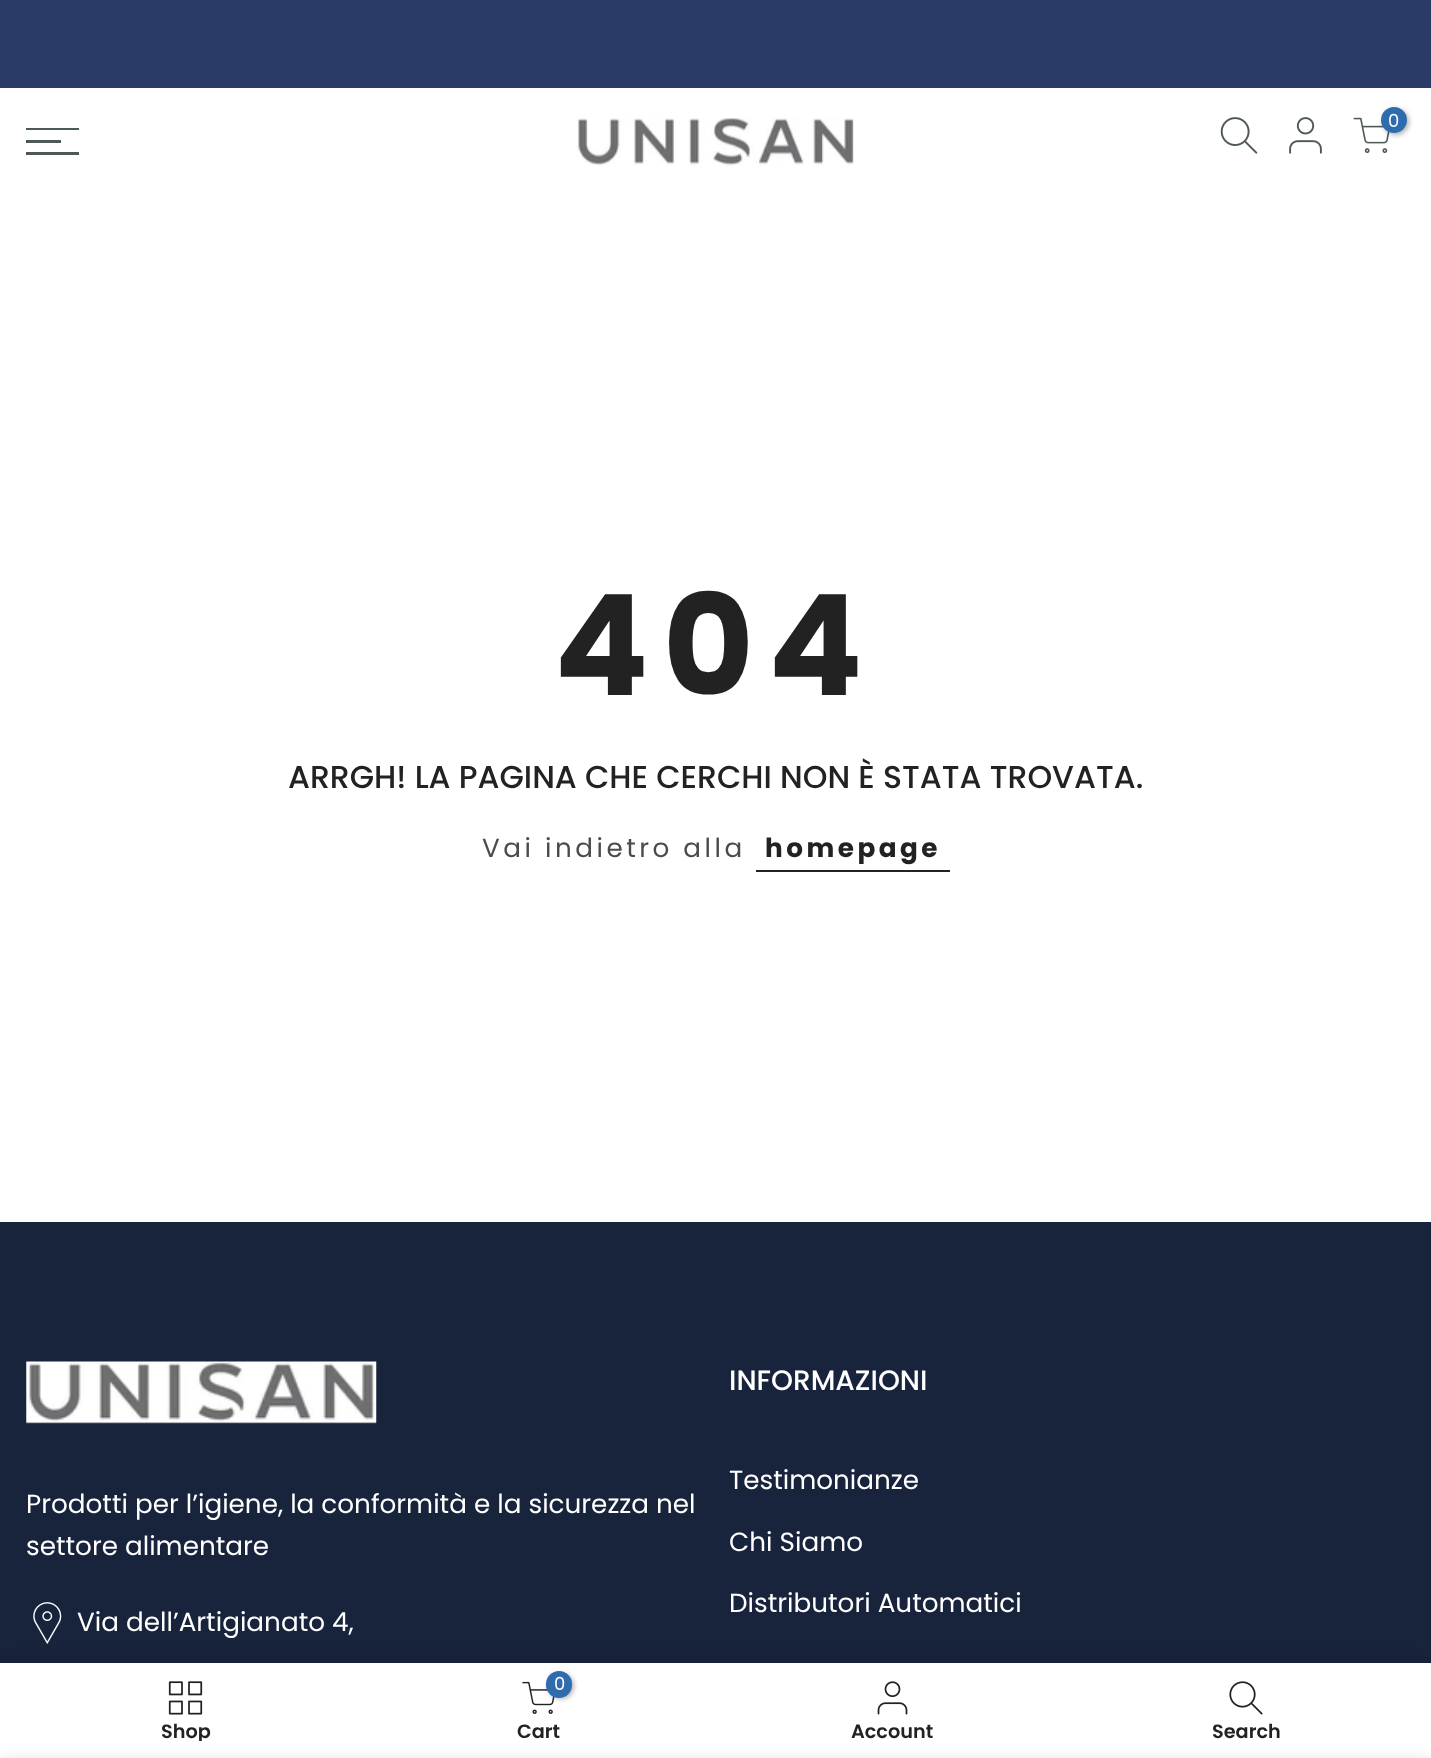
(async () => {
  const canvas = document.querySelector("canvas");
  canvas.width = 1431;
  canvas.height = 1758;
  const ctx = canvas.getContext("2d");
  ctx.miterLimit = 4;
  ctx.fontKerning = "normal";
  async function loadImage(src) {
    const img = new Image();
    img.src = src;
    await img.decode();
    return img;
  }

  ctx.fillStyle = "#ffffff";
  ctx.fillRect(0, 0, 1431, 1758);
  for (const [x, y, w, h, color] of [
    [0, 0, 1431, 88, "#2a3b68"],
    [26, 128, 53, 2, "#4d5959"],
    [26, 140, 35, 3, "#4d5959"],
    [26, 152, 53, 3, "#4d5959"],
  ]) {
    ctx.fillStyle = color;
    ctx.fillRect(x, y, w, h);
  }
  ctx.drawImage(await loadImage("img/1.png"), 576, 118, 278, 48);
  ctx.drawImage(await loadImage("img/2.png"), 1220, 117, 38, 37);
  ctx.drawImage(await loadImage("img/3.png"), 1289, 117, 33, 37);
  ctx.drawImage(await loadImage("img/4.png"), 1353, 117, 37, 36);
  ctx.fillStyle = "rgba(0, 0, 0, 0.3)";
  ctx.filter = "blur(2.5px)";
  ctx.beginPath();
  ctx.roundRect(1383, 109, 26, 26, 13);
  ctx.fill();
  ctx.filter = "none";
  ctx.fillStyle = "#2f6cae";
  ctx.beginPath();
  ctx.arc(1394, 120, 13, 0, Math.PI * 2);
  ctx.fill();
  ctx.fillStyle = "#222222";
  ctx.fillRect(756, 870, 194, 2);
  ctx.fillStyle = "#18233c";
  ctx.fillRect(0, 1222, 1431, 441);
  ctx.drawImage(await loadImage("img/5.png"), 26, 1361, 351, 63);
  ctx.drawImage(await loadImage("img/6.png"), 33, 1602, 29, 42);
  ctx.fillStyle = "rgba(0, 0, 0, 0.12)";
  ctx.filter = "blur(8px)";
  ctx.beginPath();
  ctx.rect(0, 1663, 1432, 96);
  ctx.fill();
  ctx.filter = "none";
  ctx.fillStyle = "#ffffff";
  ctx.fillRect(0, 1663, 1431, 95);
  ctx.drawImage(await loadImage("img/7.png"), 168, 1681, 35, 34);
  ctx.drawImage(await loadImage("img/8.png"), 522, 1681, 33, 33);
  ctx.fillStyle = "rgba(0, 0, 0, 0.3)";
  ctx.filter = "blur(2.5px)";
  ctx.beginPath();
  ctx.roundRect(548, 1673, 26, 26, 13);
  ctx.fill();
  ctx.filter = "none";
  ctx.fillStyle = "#2f6cae";
  ctx.beginPath();
  ctx.roundRect(546, 1671, 26, 27, 13);
  ctx.fill();
  ctx.drawImage(await loadImage("img/9.png"), 877, 1681, 31, 34);
  ctx.drawImage(await loadImage("img/10.png"), 1229, 1681, 34, 34);
  ctx.fillStyle = "rgba(0, 0, 0, 0.14)";
  ctx.filter = "blur(8px)";
  ctx.beginPath();
  ctx.rect(0, 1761, 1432, 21);
  ctx.fill();
  ctx.filter = "none";
  ctx.font = "18px Poppins";
  ctx.fillStyle = "#ffffff";
  ctx.fillText("0", 1388, 127);
  ctx.letterSpacing = "14px";
  ctx.font = "bold 140px Poppins";
  ctx.fillStyle = "#222222";
  ctx.fillText("404", 554, 695);
  ctx.letterSpacing = "0px";
  ctx.font = "500 31.5px Poppins";
  ctx.fillText("ARRGH! LA PAGINA CHE CERCHI NON È STATA TROVATA.", 288, 788);
  ctx.letterSpacing = "3.5px";
  ctx.font = "26.25px Poppins";
  ctx.fillStyle = "#4b4b4b";
  ctx.fillText("Vai indietro alla", 482, 857);
  ctx.font = "bold 26.25px Poppins";
  ctx.fillStyle = "#222222";
  ctx.fillText("homepage", 765, 857);
  ctx.letterSpacing = "0px";
  ctx.font = "26.25px Poppins";
  ctx.fillStyle = "#ffffff";
  for (const [text, x, y] of [
    ["Prodotti per l’igiene, la conformità e la sicurezza nel", 26, 1513],
    ["settore alimentare", 26, 1555],
    ["Via dell’Artigianato 4,", 77, 1631],
  ]) {
    ctx.fillText(text, x, y);
  }
  ctx.font = "500 28px Poppins";
  ctx.fillText("INFORMAZIONI", 729, 1390);
  ctx.font = "26.25px Poppins";
  for (const [text, x, y] of [
    ["Testimonianze", 729, 1489],
    ["Chi Siamo", 729, 1551],
    ["Distributori Automatici", 729, 1612],
  ]) {
    ctx.fillText(text, x, y);
  }
  ctx.save();
  ctx.beginPath();
  ctx.rect(26, 1722, 319, 19);
  ctx.clip();
  ctx.font = "600 19.25px Poppins";
  ctx.fillStyle = "#222222";
  ctx.fillText("Shop", 161, 1738);
  ctx.restore();
  ctx.font = "18px Poppins";
  ctx.fillText("0", 554, 1690);
  ctx.font = "600 19.25px Poppins";
  ctx.fillStyle = "#222222";
  for (const [text, x, y] of [
    ["Cart", 517, 1738],
    ["Account", 851, 1738],
    ["Search", 1212, 1738],
  ]) {
    ctx.fillText(text, x, y);
  }
})();
